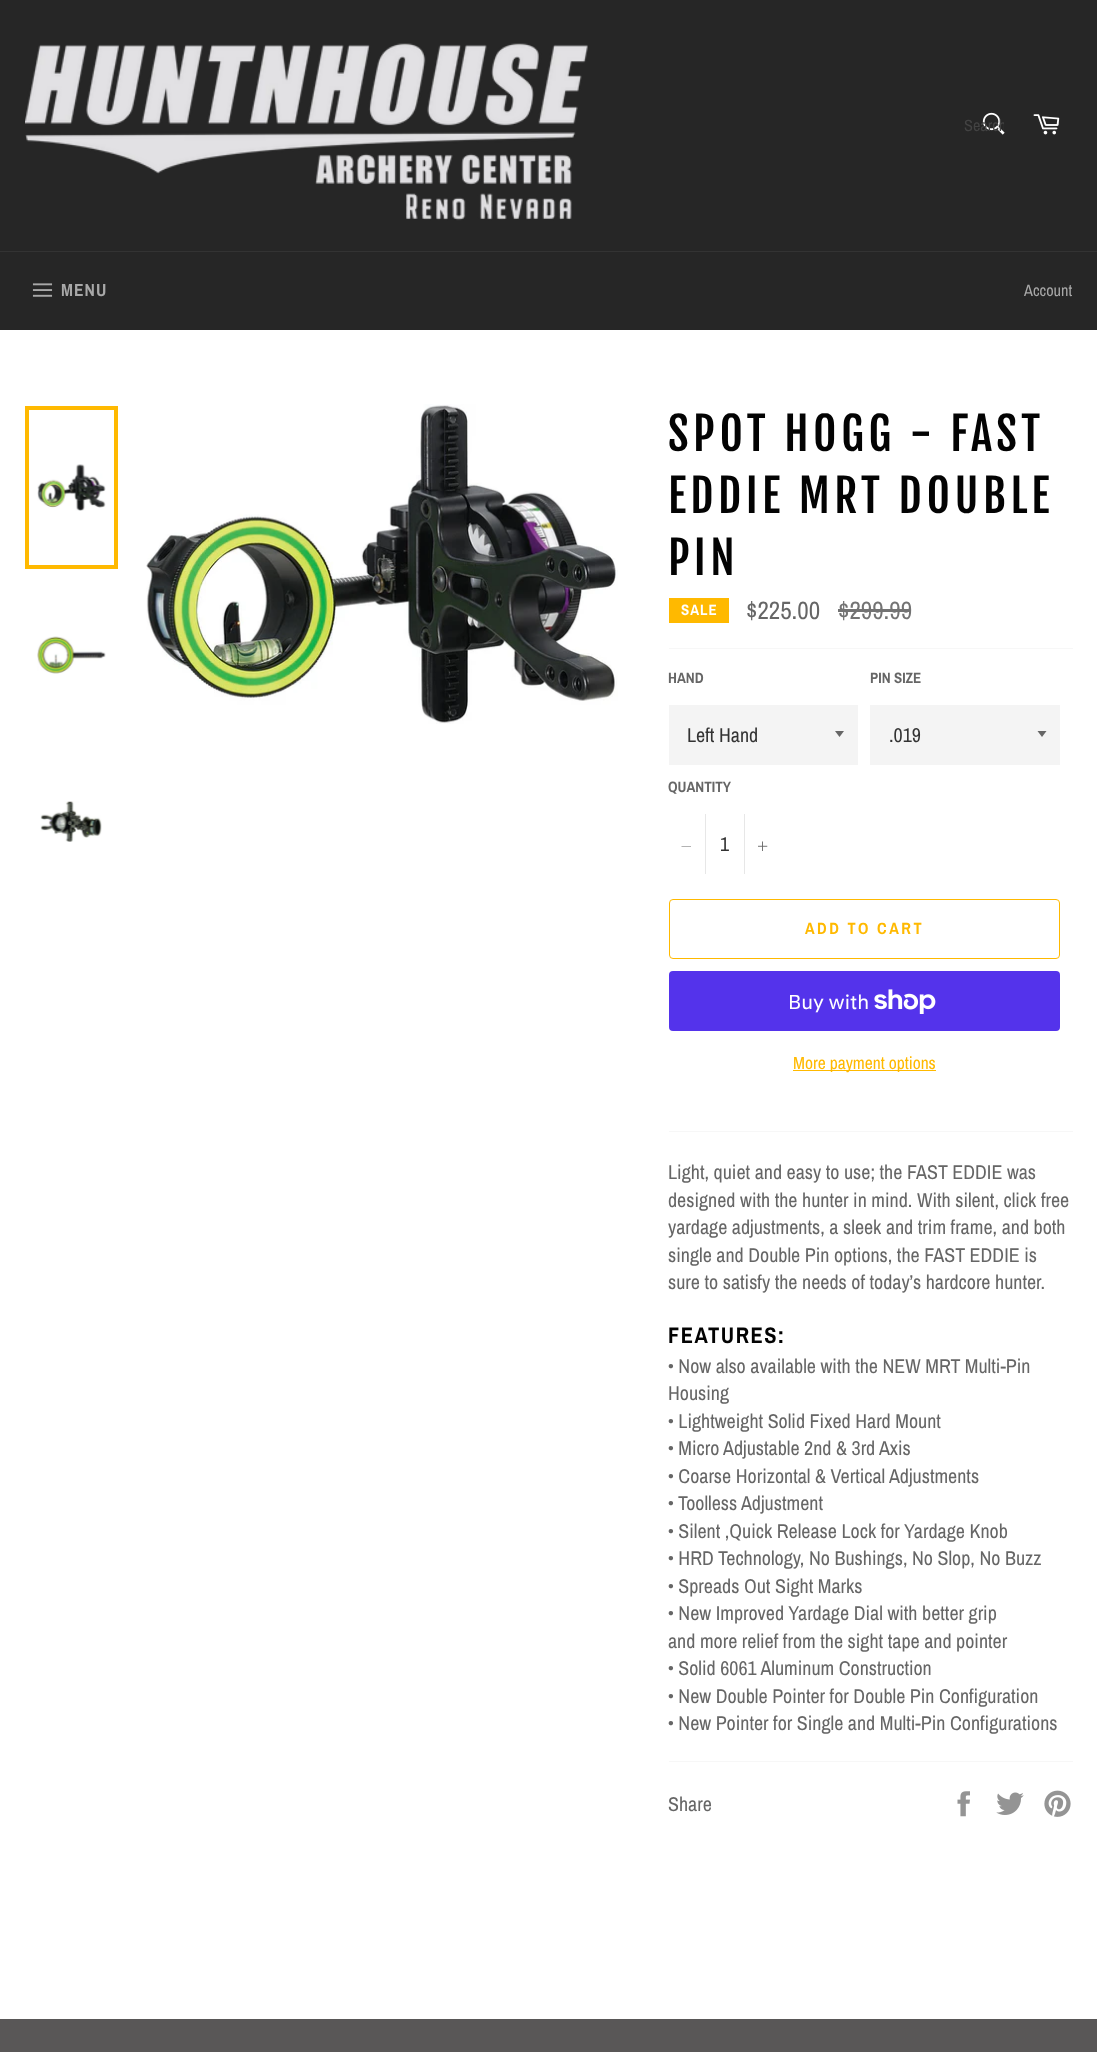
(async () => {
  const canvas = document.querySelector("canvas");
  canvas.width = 1097;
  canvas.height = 2052;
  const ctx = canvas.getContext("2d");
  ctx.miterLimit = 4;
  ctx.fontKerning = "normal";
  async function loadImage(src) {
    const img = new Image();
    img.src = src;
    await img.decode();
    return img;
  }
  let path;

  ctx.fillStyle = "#262626";
  ctx.fillRect(0, 0, 1097, 2052);
  ctx.drawImage(await loadImage("img/1.png"), 25, 43, 563, 178);
  ctx.drawImage(await loadImage("img/2.png"), 982, 112, 23, 23);
  ctx.drawImage(await loadImage("img/3.png"), 1033, 114, 27, 21);
  ctx.fillStyle = "#333333";
  ctx.fillRect(0, 251, 1097, 1);
  ctx.drawImage(await loadImage("img/4.png"), 32, 283, 21, 14);
  ctx.fillStyle = "#ffffff";
  ctx.fillRect(0, 330, 1097, 1689);
  ctx.drawImage(await loadImage("img/5.png"), 37, 464, 69, 47);
  ctx.strokeStyle = "#ffb900";
  ctx.lineWidth = 4;
  ctx.strokeRect(27, 408, 89, 159);
  ctx.drawImage(await loadImage("img/6.png"), 37, 636, 69, 38);
  ctx.drawImage(await loadImage("img/7.png"), 40, 801, 62, 41);
  ctx.drawImage(await loadImage("img/8.png"), 146, 404, 472, 320);
  for (const [x, y, w, h, color] of [
    [669, 598, 60, 25, "#ffb900"],
    [838, 609, 73, 3, "#737373"],
    [669, 648, 404, 1, "#f7f7f7"],
    [669, 705, 189, 60, "#f4f4f4"],
  ]) {
    ctx.fillStyle = color;
    ctx.fillRect(x, y, w, h);
  }
  ctx.fillStyle = "#666666";
  path = new Path2D("M835 731L839.5 737L844 731Z");
  ctx.fill(path);
  ctx.fillStyle = "#f4f4f4";
  ctx.fillRect(870, 705, 190, 60);
  ctx.fillStyle = "#666666";
  path = new Path2D("M1037.5 731L1042 737L1046.5 731Z");
  ctx.fill(path);
  ctx.fillStyle = "#e7e7e7";
  ctx.fillRect(705, 814, 1, 60);
  ctx.fillStyle = "#666666";
  path = new Path2D("M691 846V846.5H681.5V846Z");
  ctx.fill(path, "evenodd");
  ctx.fillStyle = "#e7e7e7";
  ctx.fillRect(744, 814, 1, 60);
  ctx.drawImage(await loadImage("img/9.png"), 758, 841, 10, 10);
  ctx.beginPath();
  ctx.roundRect(669.5, 899.5, 390, 59, 3.5);
  ctx.lineWidth = 1;
  ctx.stroke();
  ctx.fillStyle = "#5433eb";
  ctx.beginPath();
  ctx.roundRect(669, 971, 391, 60, 4);
  ctx.fill();
  ctx.drawImage(await loadImage("img/10.png"), 874, 989, 62, 25);
  for (const [x, y, w, h, color] of [
    [793, 1070, 143, 1, "#ffb900"],
    [669, 1131, 404, 1, "#f7f7f7"],
    [669, 1761, 404, 1, "#f7f7f7"],
  ]) {
    ctx.fillStyle = color;
    ctx.fillRect(x, y, w, h);
  }
  ctx.drawImage(await loadImage("img/11.png"), 957, 1791, 13, 26);
  ctx.drawImage(await loadImage("img/12.png"), 996, 1792, 28, 23);
  ctx.drawImage(await loadImage("img/13.png"), 1044, 1790, 27, 27);
  ctx.fillStyle = "#595757";
  ctx.fillRect(0, 2019, 1097, 33);
  ctx.save();
  ctx.beginPath();
  ctx.rect(964, 115, 40, 21);
  ctx.clip();
  ctx.font = "16.25px Archivo Narrow";
  ctx.fillStyle = "#434343";
  ctx.fillText("Search", 964, 131);
  ctx.restore();
  ctx.letterSpacing = "1px";
  ctx.font = "bold 17.5px Archivo Narrow";
  ctx.fillStyle = "#a8a8a8";
  ctx.fillText("MENU", 61, 296);
  ctx.letterSpacing = "0px";
  ctx.font = "16.25px Archivo Narrow";
  ctx.fillText("Account", 1024, 296);
  ctx.letterSpacing = "4.5px";
  ctx.font = "45px Fjalla One";
  ctx.fillStyle = "#030303";
  for (const [text, x, y] of [
    ["SPOT HOGG - FAST", 668, 451],
    ["EDDIE MRT DOUBLE", 668, 513],
    ["PIN", 668, 575],
  ]) {
    ctx.fillText(text, x, y);
  }
  ctx.letterSpacing = "1px";
  ctx.font = "bold 15px Archivo Narrow";
  ctx.fillStyle = "#ffffff";
  ctx.fillText("SALE", 681, 615);
  ctx.letterSpacing = "0px";
  ctx.font = "25px Archivo Narrow";
  ctx.fillStyle = "#666666";
  ctx.fillText("$225.00", 746, 619);
  ctx.fillStyle = "#737373";
  ctx.fillText("$299.99", 838, 619);
  ctx.font = "bold 15px Archivo Narrow";
  ctx.fillStyle = "#666666";
  ctx.fillText("HAND", 668, 683);
  ctx.font = "20px Archivo Narrow";
  ctx.fillStyle = "#333333";
  ctx.fillText("Left Hand", 687, 742);
  ctx.font = "bold 15px Archivo Narrow";
  ctx.fillStyle = "#666666";
  ctx.fillText("PIN SIZE", 870, 683);
  ctx.font = "20px Archivo Narrow";
  ctx.fillStyle = "#333333";
  ctx.fillText(".019", 889, 742);
  ctx.font = "bold 15px Archivo Narrow";
  ctx.fillStyle = "#666666";
  ctx.fillText("QUANTITY", 668, 792);
  ctx.font = "20px Archivo Narrow";
  ctx.fillStyle = "#333333";
  ctx.fillText("1", 720, 851);
  ctx.letterSpacing = "2.5px";
  ctx.font = "bold 16.25px Archivo Narrow";
  ctx.fillStyle = "#ffb900";
  ctx.fillText("ADD TO CART", 805, 934);
  ctx.letterSpacing = "0px";
  ctx.font = "20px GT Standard";
  ctx.fillStyle = "#ffffff";
  ctx.fillText("Buy with", 788, 1009);
  ctx.font = "17.5px Archivo Narrow";
  ctx.fillStyle = "#ffb900";
  ctx.fillText("More payment options", 793, 1069);
  ctx.font = "20px Archivo Narrow";
  ctx.fillStyle = "#666666";
  for (const [text, x, y] of [
    ["Light, quiet and easy to use; the FAST EDDIE was", 668, 1179],
    ["designed with the hunter in mind. With silent, click free", 668, 1207],
    ["yardage adjustments, a sleek and trim frame, and both", 668, 1234],
    ["single and Double Pin options, the FAST EDDIE is", 668, 1262],
    ["sure to satisfy the needs of today’s hardcore hunter.", 668, 1289],
  ]) {
    ctx.fillText(text, x, y);
  }
  ctx.letterSpacing = "1.5px";
  ctx.font = "bold 22.5px Archivo Narrow";
  ctx.fillStyle = "#030303";
  ctx.fillText("FEATURES:", 668, 1343);
  ctx.letterSpacing = "0px";
  ctx.font = "20px Archivo Narrow";
  ctx.fillStyle = "#666666";
  for (const [text, x, y] of [
    ["• Now also available with the NEW MRT Multi-Pin", 668, 1373],
    ["Housing", 668, 1400],
    ["• Lightweight Solid Fixed Hard Mount", 668, 1428],
    ["• Micro Adjustable 2nd & 3rd Axis", 668, 1455],
    ["• Coarse Horizontal & Vertical Adjustments", 668, 1483],
    ["• Toolless Adjustment", 668, 1510],
    ["• Silent ,Quick Release Lock for Yardage Knob", 668, 1538],
    ["• HRD Technology, No Bushings, No Slop, No Buzz", 668, 1565],
    ["• Spreads Out Sight Marks", 668, 1593],
    ["• New Improved Yardage Dial with better grip", 668, 1620],
    ["and more relief from the sight tape and pointer", 668, 1648],
    ["• Solid 6061 Aluminum Construction", 668, 1675],
    ["• New Double Pointer for Double Pin Configuration", 668, 1703],
    ["• New Pointer for Single and Multi-Pin Configurations", 668, 1730],
    ["Share", 668, 1811],
  ]) {
    ctx.fillText(text, x, y);
  }
})();
